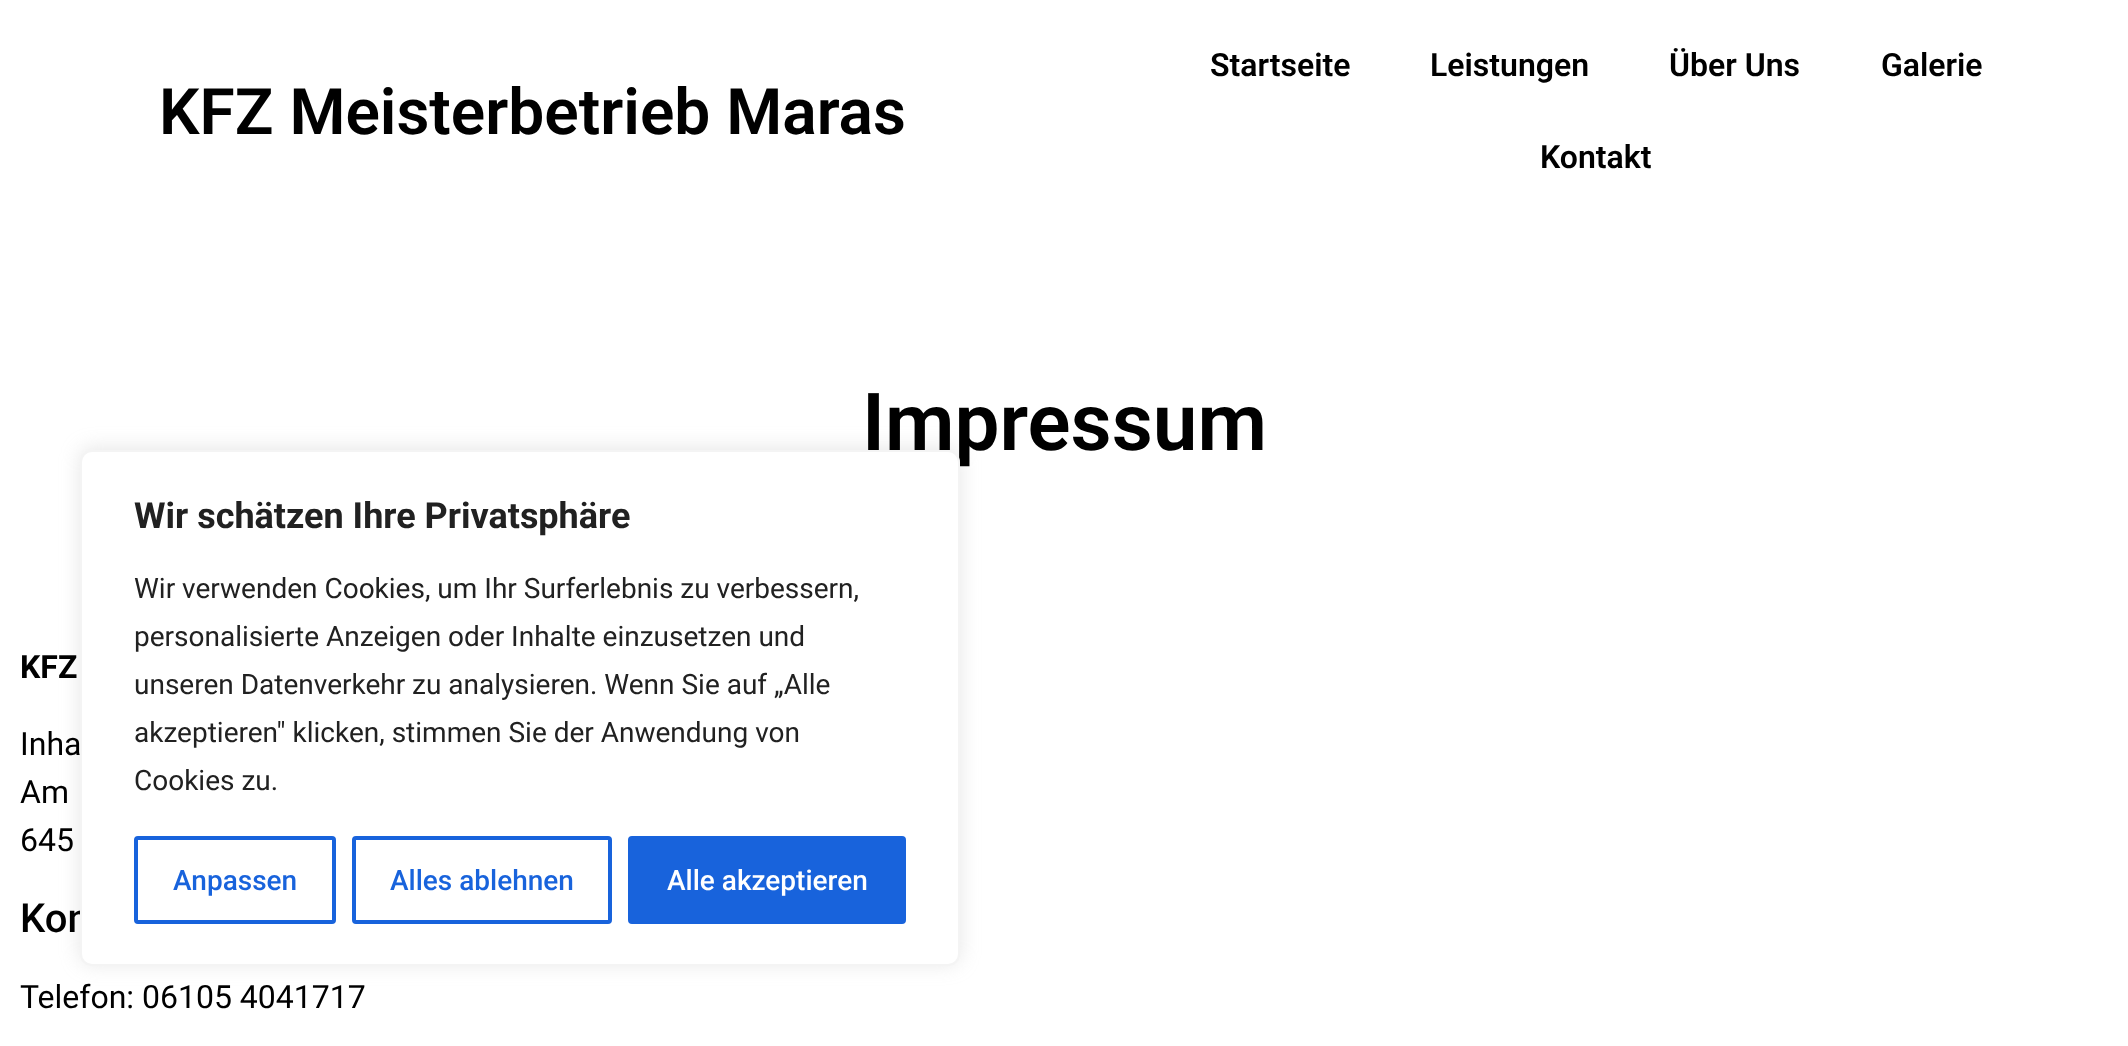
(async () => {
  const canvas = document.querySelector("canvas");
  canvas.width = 2128;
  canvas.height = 1046;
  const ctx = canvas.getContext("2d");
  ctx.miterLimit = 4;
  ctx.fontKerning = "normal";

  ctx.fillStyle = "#ffffff";
  ctx.fillRect(0, 0, 2128, 1046);
  ctx.fillStyle = "rgba(172, 171, 171, 0.3)";
  ctx.filter = "blur(10px)";
  ctx.beginPath();
  ctx.roundRect(80, 448, 880, 516, 12);
  ctx.fill();
  ctx.filter = "none";
  ctx.font = "600 64px Roboto";
  ctx.fillStyle = "#000000";
  ctx.fillText("KFZ Meisterbetrieb Maras", 159, 134);
  ctx.font = "600 32px Roboto";
  for (const [text, x, y] of [
    ["Startseite", 1210, 76],
    ["Leistungen", 1430, 76],
    ["Über Uns", 1669, 76],
    ["Galerie", 1881, 76],
    ["Kontakt", 1540, 168],
  ]) {
    ctx.fillText(text, x, y);
  }
  ctx.font = "600 80px Roboto";
  ctx.fillText("Impressum", 862, 450);
  ctx.font = "bold 32px Roboto";
  ctx.fillText("KFZ", 20, 678);
  ctx.font = "32px Roboto";
  for (const [text, x, y] of [
    ["Inha", 20, 755],
    ["Am", 20, 803],
    ["645", 20, 851],
  ]) {
    ctx.fillText(text, x, y);
  }
  ctx.font = "500 40px Roboto";
  ctx.fillText("Kon", 20, 932);
  ctx.font = "32px Roboto";
  ctx.fillText("Telefon: 06105 4041717", 20, 1008);
  ctx.fillStyle = "#ffffff";
  ctx.beginPath();
  ctx.roundRect(81, 451, 878, 514, 11);
  ctx.fill();
  ctx.strokeStyle = "#f4f4f4";
  ctx.lineWidth = 2;
  ctx.stroke();
  ctx.font = "bold 36px Roboto";
  ctx.fillStyle = "#212121";
  ctx.fillText("Wir schätzen Ihre Privatsphäre", 134, 528);
  ctx.font = "28px Roboto";
  for (const [text, x, y] of [
    ["Wir verwenden Cookies, um Ihr Surferlebnis zu verbessern,", 134, 598],
    ["personalisierte Anzeigen oder Inhalte einzusetzen und", 134, 646],
    ["unseren Datenverkehr zu analysieren. Wenn Sie auf „Alle", 134, 694],
    ["akzeptieren\" klicken, stimmen Sie der Anwendung von", 134, 742],
    ["Cookies zu.", 134, 790],
  ]) {
    ctx.fillText(text, x, y);
  }
  ctx.beginPath();
  ctx.roundRect(136, 838, 198, 84, 2);
  ctx.strokeStyle = "#1863dc";
  ctx.lineWidth = 4;
  ctx.stroke();
  ctx.font = "500 28px Roboto";
  ctx.fillStyle = "#1863dc";
  ctx.fillText("Anpassen", 173, 890);
  ctx.beginPath();
  ctx.roundRect(354, 838, 256, 84, 2);
  ctx.stroke();
  ctx.fillText("Alles ablehnen", 390, 890);
  ctx.beginPath();
  ctx.roundRect(630, 838, 274, 84, 2);
  ctx.fill();
  ctx.stroke();
  ctx.fillStyle = "#ffffff";
  ctx.fillText("Alle akzeptieren", 667, 890);
})();
